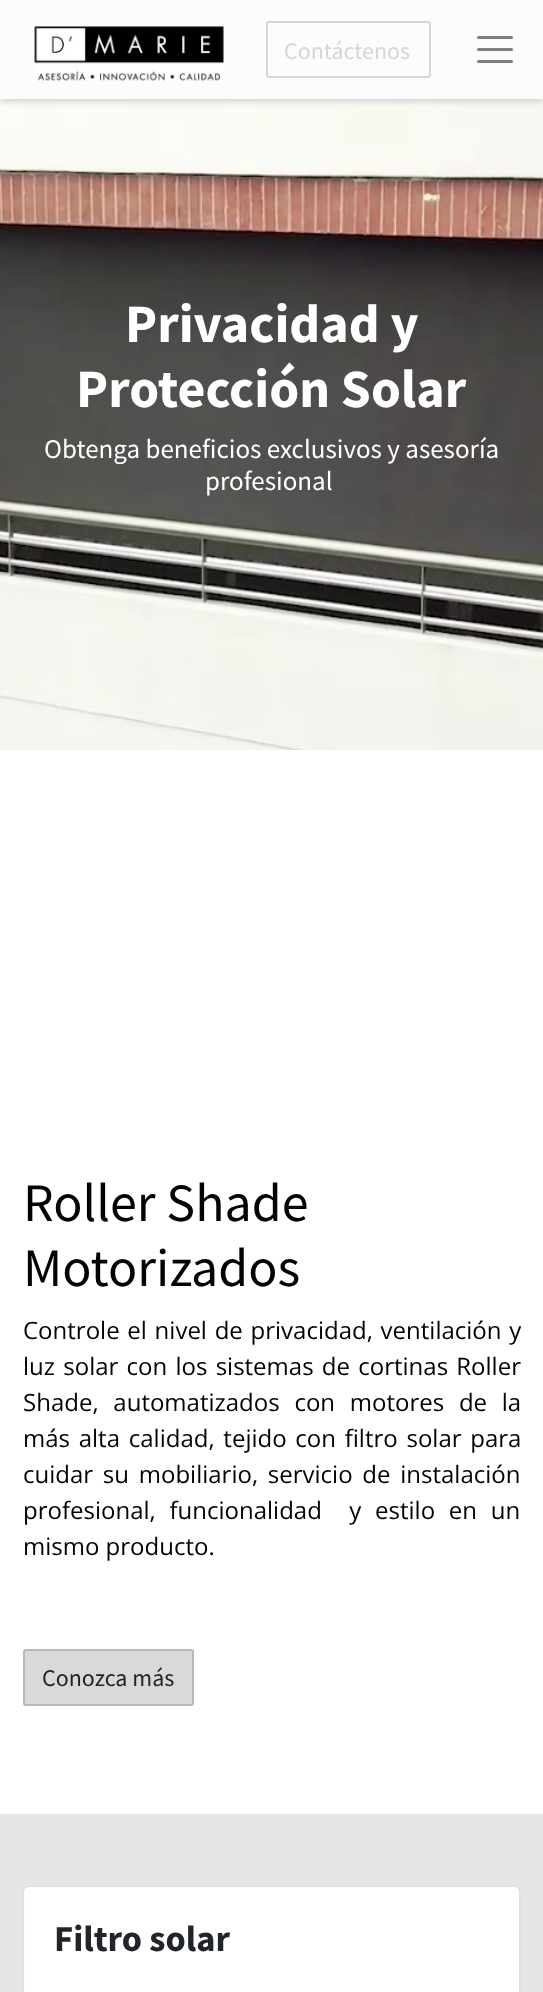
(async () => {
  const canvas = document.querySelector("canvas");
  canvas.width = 543;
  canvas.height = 1992;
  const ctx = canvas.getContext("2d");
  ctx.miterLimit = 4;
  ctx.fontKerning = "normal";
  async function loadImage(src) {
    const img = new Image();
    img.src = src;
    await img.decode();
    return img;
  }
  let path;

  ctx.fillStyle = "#ffffff";
  ctx.fillRect(0, 0, 543, 1992);
  ctx.drawImage(await loadImage("img/2.png"), 0, 99, 543, 651);
  ctx.fillStyle = "rgba(0, 0, 0, 0.15)";
  ctx.filter = "blur(3px)";
  ctx.beginPath();
  ctx.rect(0, 3, 543, 99);
  ctx.fill();
  ctx.filter = "none";
  ctx.fillStyle = "#fcfcfc";
  ctx.fillRect(0, 0, 543, 99);
  ctx.drawImage(await loadImage("img/1.png"), 34, 26, 190, 55);
  ctx.beginPath();
  ctx.roundRect(267, 22, 163, 55, 2);
  ctx.strokeStyle = "#d6d6d6";
  ctx.lineWidth = 2;
  ctx.stroke();
  path = new Path2D("M478.5 37.5H511.5M478.5 49.5H511.5M478.5 61.5H511.5");
  ctx.strokeStyle = "#7e7e7e";
  ctx.lineWidth = 3;
  ctx.lineCap = "round";
  ctx.stroke(path);
  ctx.fillStyle = "#d9d9d9";
  ctx.beginPath();
  ctx.roundRect(23, 1649, 171, 57, 3);
  ctx.fill();
  ctx.beginPath();
  ctx.roundRect(24, 1650, 169, 55, 2);
  ctx.strokeStyle = "rgba(0, 0, 0, 0.15)";
  ctx.lineWidth = 2;
  ctx.stroke();
  ctx.fillStyle = "#e6e6e6";
  ctx.fillRect(0, 1814, 543, 178);
  ctx.fillStyle = "#ffffff";
  ctx.beginPath();
  ctx.roundRect(23, 1886, 498, 106, [6, 6, 0, 0]);
  ctx.fill();
  ctx.beginPath();
  ctx.roundRect(24, 1887, 496, 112, 5);
  ctx.strokeStyle = "rgba(0, 0, 0, 0.12)";
  ctx.stroke();
  ctx.fillStyle = "rgba(255, 255, 255, 0.9)";
  ctx.beginPath();
  ctx.roundRect(24, 1887, 495, 105, [5, 5, 0, 0]);
  ctx.fill();
  ctx.font = "24px Source Sans Pro";
  ctx.fillStyle = "#d6d6d6";
  ctx.fillText("Contáctenos", 284, 59);
  ctx.font = "bold 54px Source Sans Pro";
  ctx.fillStyle = "#ffffff";
  ctx.fillText("Privacidad y", 125, 342);
  ctx.fillText("Protección Solar", 76, 407);
  ctx.font = "27px Source Sans Pro";
  ctx.fillText("Obtenga beneficios exclusivos y asesoría", 44, 458);
  ctx.fillText("profesional", 205, 490);
  ctx.font = "54px Source Sans Pro";
  ctx.fillStyle = "#030303";
  ctx.fillText("Roller Shade", 23, 1221);
  ctx.fillText("Motorizados", 23, 1286);
  ctx.wordSpacing = "1.5px";
  ctx.font = "24px Open Sans";
  ctx.fillText("Controle el nivel de privacidad, ventilación y", 23, 1339);
  ctx.wordSpacing = "2px";
  ctx.fillText("luz solar con los sistemas de cortinas Roller", 23, 1375);
  ctx.wordSpacing = "8.5px";
  ctx.fillText("Shade, automatizados con motores de la", 23, 1411);
  ctx.wordSpacing = "2.5px";
  ctx.fillText("más alta calidad, tejido con filtro solar para", 23, 1447);
  ctx.wordSpacing = "3.5px";
  ctx.fillText("cuidar su mobiliario, servicio de instalación", 23, 1483);
  ctx.wordSpacing = "7.5px";
  ctx.fillText("profesional, funcionalidad  y estilo en un", 23, 1519);
  ctx.wordSpacing = "0px";
  ctx.fillText("mismo producto.", 23, 1555);
  ctx.font = "24px Source Sans Pro";
  ctx.fillStyle = "#212529";
  ctx.fillText("Conozca más", 42, 1686);
  ctx.font = "bold 36.5px Source Sans Pro";
  ctx.fillText("Filtro solar", 54, 1951);
})();
